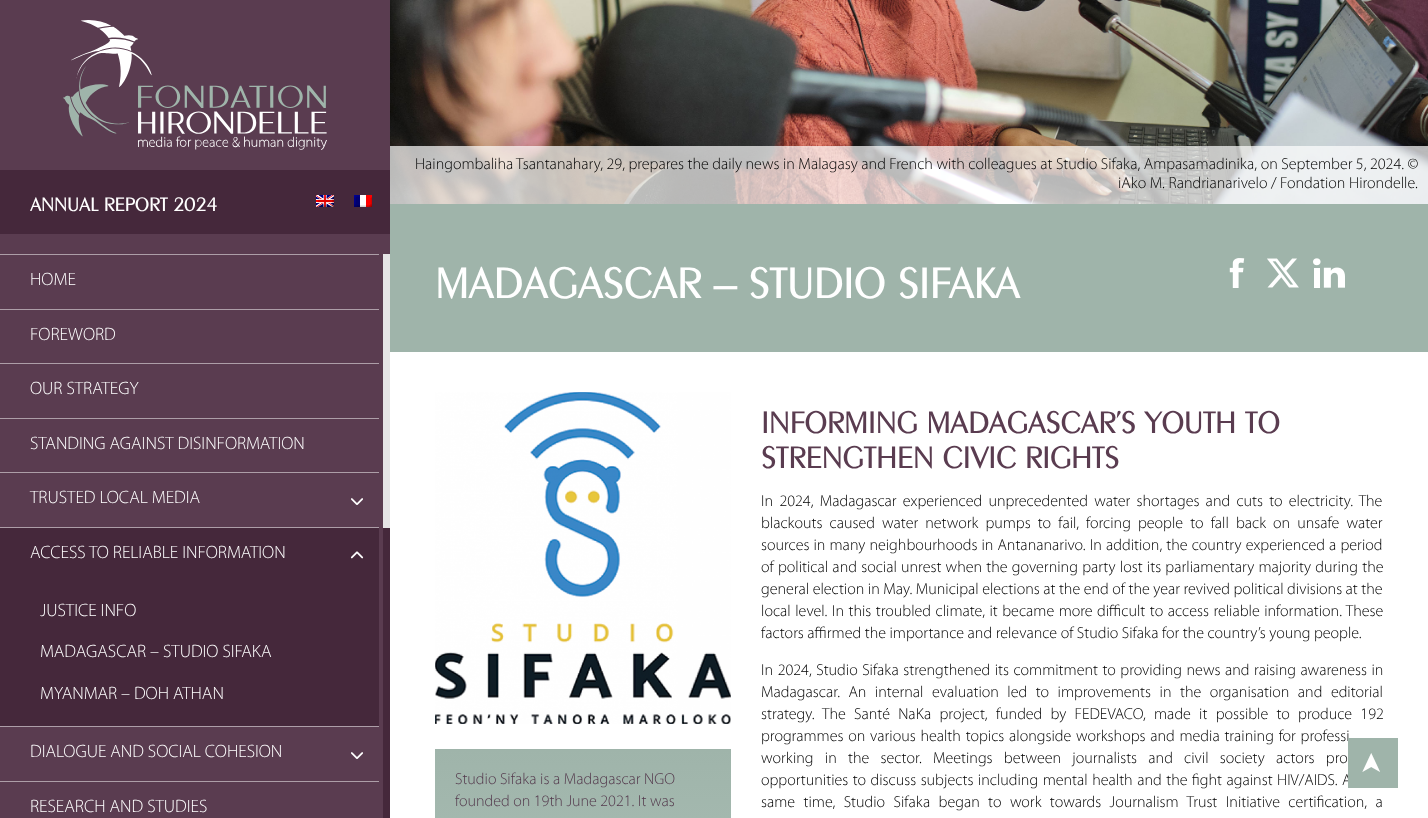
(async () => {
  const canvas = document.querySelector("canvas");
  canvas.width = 1428;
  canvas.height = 818;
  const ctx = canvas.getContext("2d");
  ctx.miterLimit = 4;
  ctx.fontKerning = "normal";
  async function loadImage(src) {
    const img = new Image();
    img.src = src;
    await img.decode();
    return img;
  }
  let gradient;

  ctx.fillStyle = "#ffffff";
  ctx.fillRect(0, 0, 1428, 818);
  ctx.fillStyle = "#5a3c50";
  ctx.fillRect(0, 0, 390, 818);
  ctx.drawImage(await loadImage("img/1.png"), 63, 20, 264, 130);
  ctx.fillStyle = "#45283b";
  ctx.fillRect(0, 170, 390, 64);
  ctx.drawImage(await loadImage("img/2.png"), 316, 195, 18, 12);
  ctx.drawImage(await loadImage("img/3.png"), 354, 195, 18, 12);
  for (const [x, y, w, h, color] of [
    [0, 254, 379, 1, "#ad9ea8"],
    [0, 309, 379, 1, "#ad9ea8"],
    [0, 363, 379, 1, "#ad9ea8"],
    [0, 418, 379, 1, "#ad9ea8"],
    [0, 472, 379, 1, "#ad9ea8"],
    [0, 527, 379, 1, "#ad9ea8"],
  ]) {
    ctx.fillStyle = color;
    ctx.fillRect(x, y, w, h);
  }
  ctx.drawImage(await loadImage("img/4.png"), 351, 498, 12, 7);
  ctx.fillRect(0, 726, 379, 1);
  ctx.fillStyle = "#45283b";
  ctx.fillRect(0, 528, 379, 54);
  ctx.drawImage(await loadImage("img/5.png"), 350, 551, 14, 8);
  ctx.fillRect(0, 582, 379, 144);
  ctx.fillStyle = "#ad9ea8";
  ctx.fillRect(0, 781, 379, 1);
  ctx.drawImage(await loadImage("img/4.png"), 351, 752, 12, 7);
  ctx.fillStyle = "#45283b";
  ctx.fillRect(383, 528, 7, 290);
  ctx.fillStyle = "#e6e5e6";
  ctx.fillRect(383, 254, 7, 274);
  ctx.drawImage(await loadImage("img/6.png"), 390, 0, 1038, 204);
  ctx.fillStyle = "rgba(255, 255, 255, 0.7)";
  ctx.fillRect(390, 146, 1038, 58);
  ctx.fillStyle = "#9fb4aa";
  ctx.fillRect(390, 204, 1038, 148);
  ctx.drawImage(await loadImage("img/7.png"), 1229, 258, 16, 30);
  ctx.drawImage(await loadImage("img/8.png"), 1267, 258, 32, 30);
  ctx.drawImage(await loadImage("img/9.png"), 1313, 258, 32, 30);
  ctx.drawImage(await loadImage("img/10.png"), 435, 392, 296, 332);
  gradient = ctx.createLinearGradient(583, 749, 583, 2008);
  gradient.addColorStop(0, "#9fb4aa");
  gradient.addColorStop(0.6, "#cbdfd6");
  gradient.addColorStop(1, "#ffffff");
  ctx.fillStyle = gradient;
  ctx.fillRect(435, 749, 296, 69);
  ctx.font = "bold 20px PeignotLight";
  ctx.fillStyle = "#ffffff";
  ctx.fillText("ANNUAL REPORT 2024", 30, 211);
  ctx.font = "300 18px Myriad";
  for (const [text, x, y] of [
    ["HOME", 30, 285],
    ["FOREWORD", 30, 340],
    ["OUR STRATEGY", 30, 394],
    ["STANDING AGAINST DISINFORMATION", 30, 449],
    ["TRUSTED LOCAL MEDIA", 30, 503],
    ["ACCESS TO RELIABLE INFORMATION", 30, 558],
    ["JUSTICE INFO", 40, 616],
    ["MADAGASCAR – STUDIO SIFAKA", 40, 657],
    ["MYANMAR – DOH ATHAN", 40, 699],
    ["DIALOGUE AND SOCIAL COHESION", 30, 757],
    ["RESEARCH AND STUDIES", 30, 812],
  ]) {
    ctx.fillText(text, x, y);
  }
  ctx.font = "300 16px Myriad";
  ctx.fillStyle = "#000000";
  ctx.fillText("Haingombaliha Tsantanahary, 29, prepares the daily news in Malagasy and French with colleagues at Studio Sifaka, Ampasamadinika, on September 5, 2024. ©", 415, 169);
  ctx.fillText("iAko M. Randrianarivelo / Fondation Hirondelle.", 1118, 188);
  ctx.font = "bold 45px PeignotLight";
  ctx.fillStyle = "#ffffff";
  ctx.fillText("MADAGASCAR – STUDIO SIFAKA", 435, 298);
  ctx.font = "300 16px Myriad";
  ctx.fillStyle = "#543a4d";
  ctx.fillText("Studio Sifaka is a Madagascar NGO", 455, 784);
  ctx.fillText("founded on 19th June 2021. It was", 455, 806);
  ctx.font = "bold 32px PeignotLight";
  ctx.fillStyle = "#5a3c50";
  ctx.fillText("INFORMING MADAGASCAR’S YOUTH TO", 761, 433);
  ctx.fillText("STRENGTHEN CIVIC RIGHTS", 761, 468);
  ctx.wordSpacing = "2.75px";
  ctx.font = "300 16px Myriad";
  ctx.fillStyle = "#000000";
  ctx.fillText("In 2024, Madagascar experienced unprecedented water shortages and cuts to electricity. The", 761, 506);
  ctx.wordSpacing = "3.6px";
  ctx.fillText("blackouts caused water network pumps to fail, forcing people to fall back on unsafe water", 761, 528);
  ctx.wordSpacing = "0.6px";
  ctx.fillText("sources in many neighbourhoods in Antananarivo. In addition, the country experienced a period", 761, 550);
  ctx.wordSpacing = "0.75px";
  ctx.fillText("of political and social unrest when the governing party lost its parliamentary majority during the", 761, 572);
  ctx.wordSpacing = "0px";
  ctx.fillText("general election in May. Municipal elections at the end of the year revived political divisions at the", 761, 594);
  ctx.wordSpacing = "1px";
  ctx.fillText("local level. In this troubled climate, it became more difficult to access reliable information. These", 761, 616);
  ctx.wordSpacing = "0px";
  ctx.fillText("factors affirmed the importance and relevance of Studio Sifaka for the country’s young people.", 761, 638);
  ctx.wordSpacing = "1px";
  ctx.fillText("In 2024, Studio Sifaka strengthened its commitment to providing news and raising awareness in", 761, 675);
  ctx.wordSpacing = "5px";
  ctx.fillText("Madagascar. An internal evaluation led to improvements in the organisation and editorial", 761, 697);
  ctx.wordSpacing = "4.75px";
  ctx.fillText("strategy. The Santé NaKa project, funded by FEDEVACO, made it possible to produce 192", 761, 719);
  ctx.wordSpacing = "1.25px";
  ctx.fillText("programmes on various health topics alongside workshops and media training for professi", 761, 741);
  ctx.wordSpacing = "7.75px";
  ctx.fillText("working in the sector. Meetings between journalists and civil society actors pro", 761, 763);
  ctx.wordSpacing = "1px";
  ctx.fillText("opportunities to discuss subjects including mental health and the fight against HIV/AIDS. A", 761, 785);
  ctx.wordSpacing = "4.9px";
  ctx.fillText("same time, Studio Sifaka began to work towards Journalism Trust Initiative certification, a", 761, 807);
  ctx.fillStyle = "#9fb4aa";
  ctx.fillRect(1348, 738, 50, 50);
  ctx.wordSpacing = "0px";
  ctx.font = "28px DejaVu Sans";
  ctx.fillStyle = "#ffffff";
  ctx.save();
  ctx.translate(1380, 775);
  ctx.rotate(-90 * Math.PI / 180);
  ctx.fillText("➤", 0, 0);
  ctx.restore();
})();
